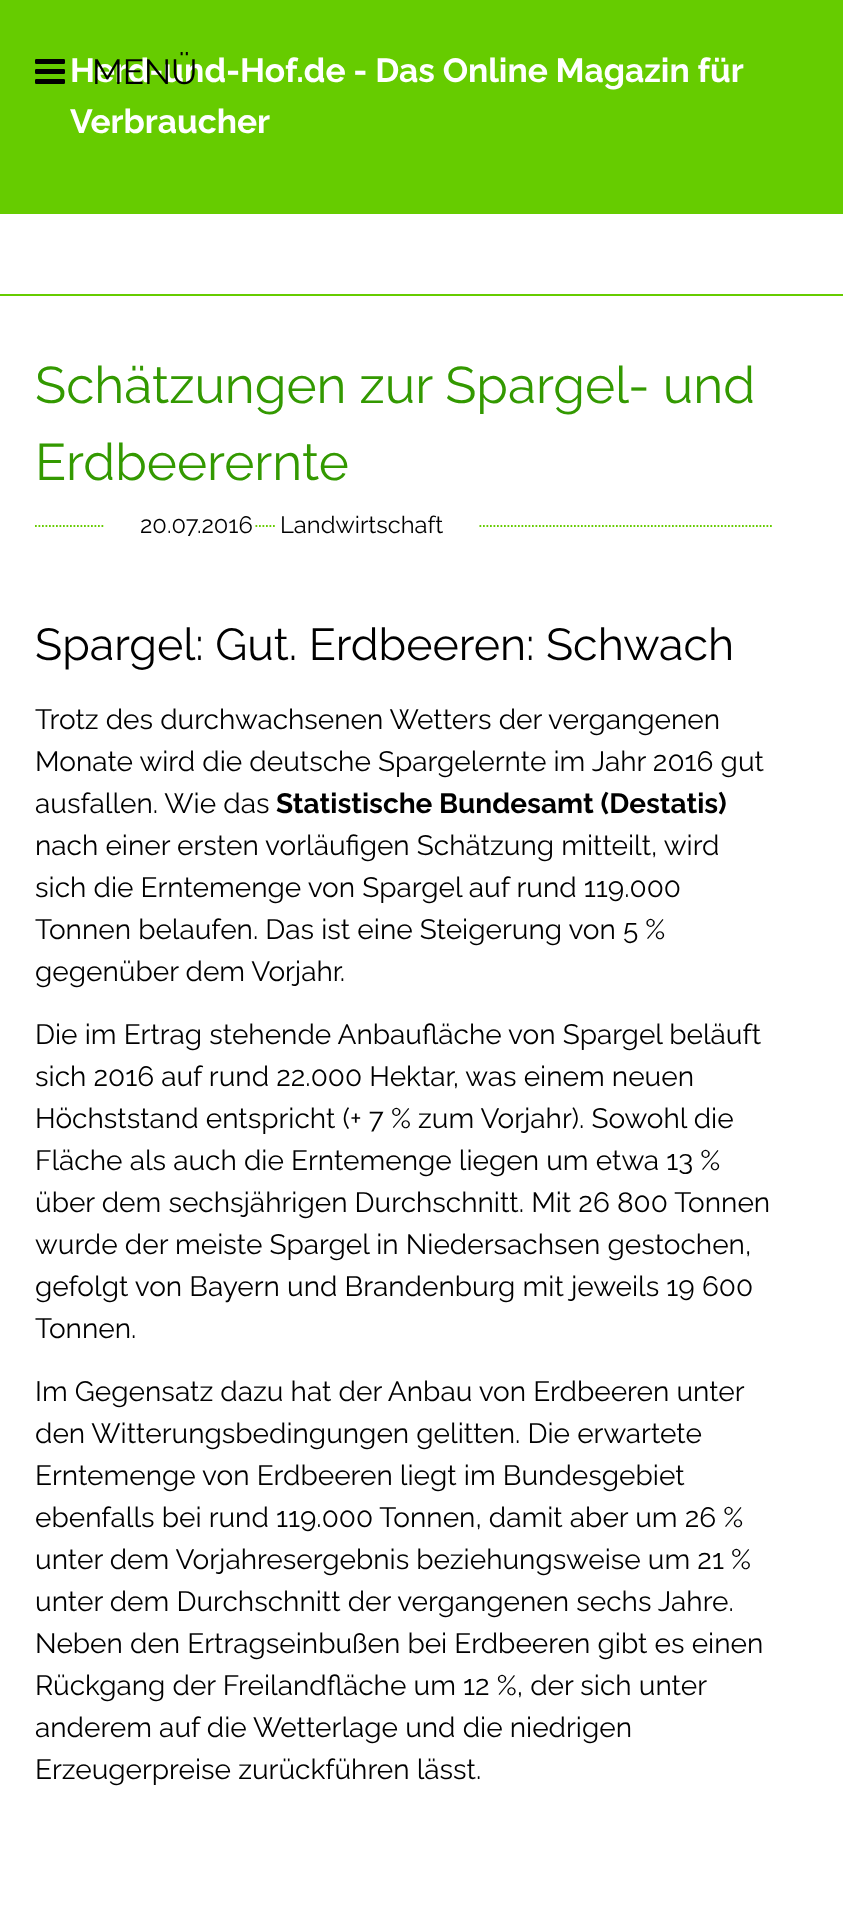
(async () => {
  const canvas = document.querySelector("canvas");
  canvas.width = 843;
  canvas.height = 1921;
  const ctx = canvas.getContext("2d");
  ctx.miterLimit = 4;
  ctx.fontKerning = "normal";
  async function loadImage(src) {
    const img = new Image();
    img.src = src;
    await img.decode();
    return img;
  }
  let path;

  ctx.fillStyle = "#ffffff";
  ctx.fillRect(0, 0, 843, 1921);
  ctx.fillStyle = "#66cc00";
  ctx.fillRect(0, 0, 843, 214);
  ctx.drawImage(await loadImage("img/1.png"), 35, 59, 30, 25);
  ctx.fillRect(0, 294, 843, 2);
  path = new Path2D("M35 526H773.5");
  ctx.strokeStyle = "#66cc00";
  ctx.lineWidth = 1.8;
  ctx.setLineDash([1.75, 1.75]);
  ctx.stroke(path);
  ctx.fillStyle = "#ffffff";
  ctx.fillRect(105, 525, 149, 2);
  ctx.fillRect(276, 525, 202, 2);
  ctx.wordSpacing = "-0.25px";
  ctx.font = "bold 33.6px Raleway";
  ctx.fillText("Herd-und-Hof.de - Das Online Magazin für", 70, 82);
  ctx.wordSpacing = "0px";
  ctx.font = "35px Raleway";
  ctx.fillStyle = "#000000";
  ctx.fillText("MENÜ", 92, 84);
  ctx.font = "bold 33.6px Raleway";
  ctx.fillStyle = "#ffffff";
  ctx.fillText("Verbraucher", 70, 133);
  ctx.font = "51.3px Raleway";
  ctx.fillStyle = "#339900";
  ctx.fillText("Schätzungen zur Spargel- und", 35, 403);
  ctx.fillText("Erdbeerernte", 35, 480);
  ctx.font = "23.75px Raleway";
  ctx.fillStyle = "#000000";
  ctx.fillText("20.07.2016", 140, 533);
  ctx.fillText("Landwirtschaft", 280, 533);
  ctx.font = "44.75px Raleway";
  ctx.fillText("Spargel: Gut. Erdbeeren: Schwach", 35, 660);
  ctx.font = "28px Raleway";
  for (const [text, x, y] of [
    ["Trotz des durchwachsenen Wetters der vergangenen", 35, 729],
    ["Monate wird die deutsche Spargelernte im Jahr 2016 gut", 35, 771],
    ["ausfallen. Wie das", 35, 813],
  ]) {
    ctx.fillText(text, x, y);
  }
  ctx.font = "bold 28px Raleway";
  ctx.fillText("Statistische Bundesamt (Destatis)", 276, 813);
  ctx.font = "28px Raleway";
  for (const [text, x, y] of [
    ["nach einer ersten vorläufigen Schätzung mitteilt, wird", 35, 855],
    ["sich die Erntemenge von Spargel auf rund 119.000", 35, 897],
    ["Tonnen belaufen. Das ist eine Steigerung von 5 %", 35, 939],
    ["gegenüber dem Vorjahr.", 35, 981],
    ["Die im Ertrag stehende Anbaufläche von Spargel beläuft", 35, 1044],
    ["sich 2016 auf rund 22.000 Hektar, was einem neuen", 35, 1086],
    ["Höchststand entspricht (+ 7 % zum Vorjahr). Sowohl die", 35, 1128],
    ["Fläche als auch die Erntemenge liegen um etwa 13 %", 35, 1170],
    ["über dem sechsjährigen Durchschnitt. Mit 26 800 Tonnen", 35, 1212],
    ["wurde der meiste Spargel in Niedersachsen gestochen,", 35, 1254],
    ["gefolgt von Bayern und Brandenburg mit jeweils 19 600", 35, 1296],
    ["Tonnen.", 35, 1338],
    ["Im Gegensatz dazu hat der Anbau von Erdbeeren unter", 35, 1401],
    ["den Witterungsbedingungen gelitten. Die erwartete", 35, 1443],
    ["Erntemenge von Erdbeeren liegt im Bundesgebiet", 35, 1485],
    ["ebenfalls bei rund 119.000 Tonnen, damit aber um 26 %", 35, 1527],
    ["unter dem Vorjahresergebnis beziehungsweise um 21 %", 35, 1569],
    ["unter dem Durchschnitt der vergangenen sechs Jahre.", 35, 1611],
    ["Neben den Ertragseinbußen bei Erdbeeren gibt es einen", 35, 1653],
    ["Rückgang der Freilandfläche um 12 %, der sich unter", 35, 1695],
    ["anderem auf die Wetterlage und die niedrigen", 35, 1737],
    ["Erzeugerpreise zurückführen lässt.", 35, 1779],
  ]) {
    ctx.fillText(text, x, y);
  }
})();
